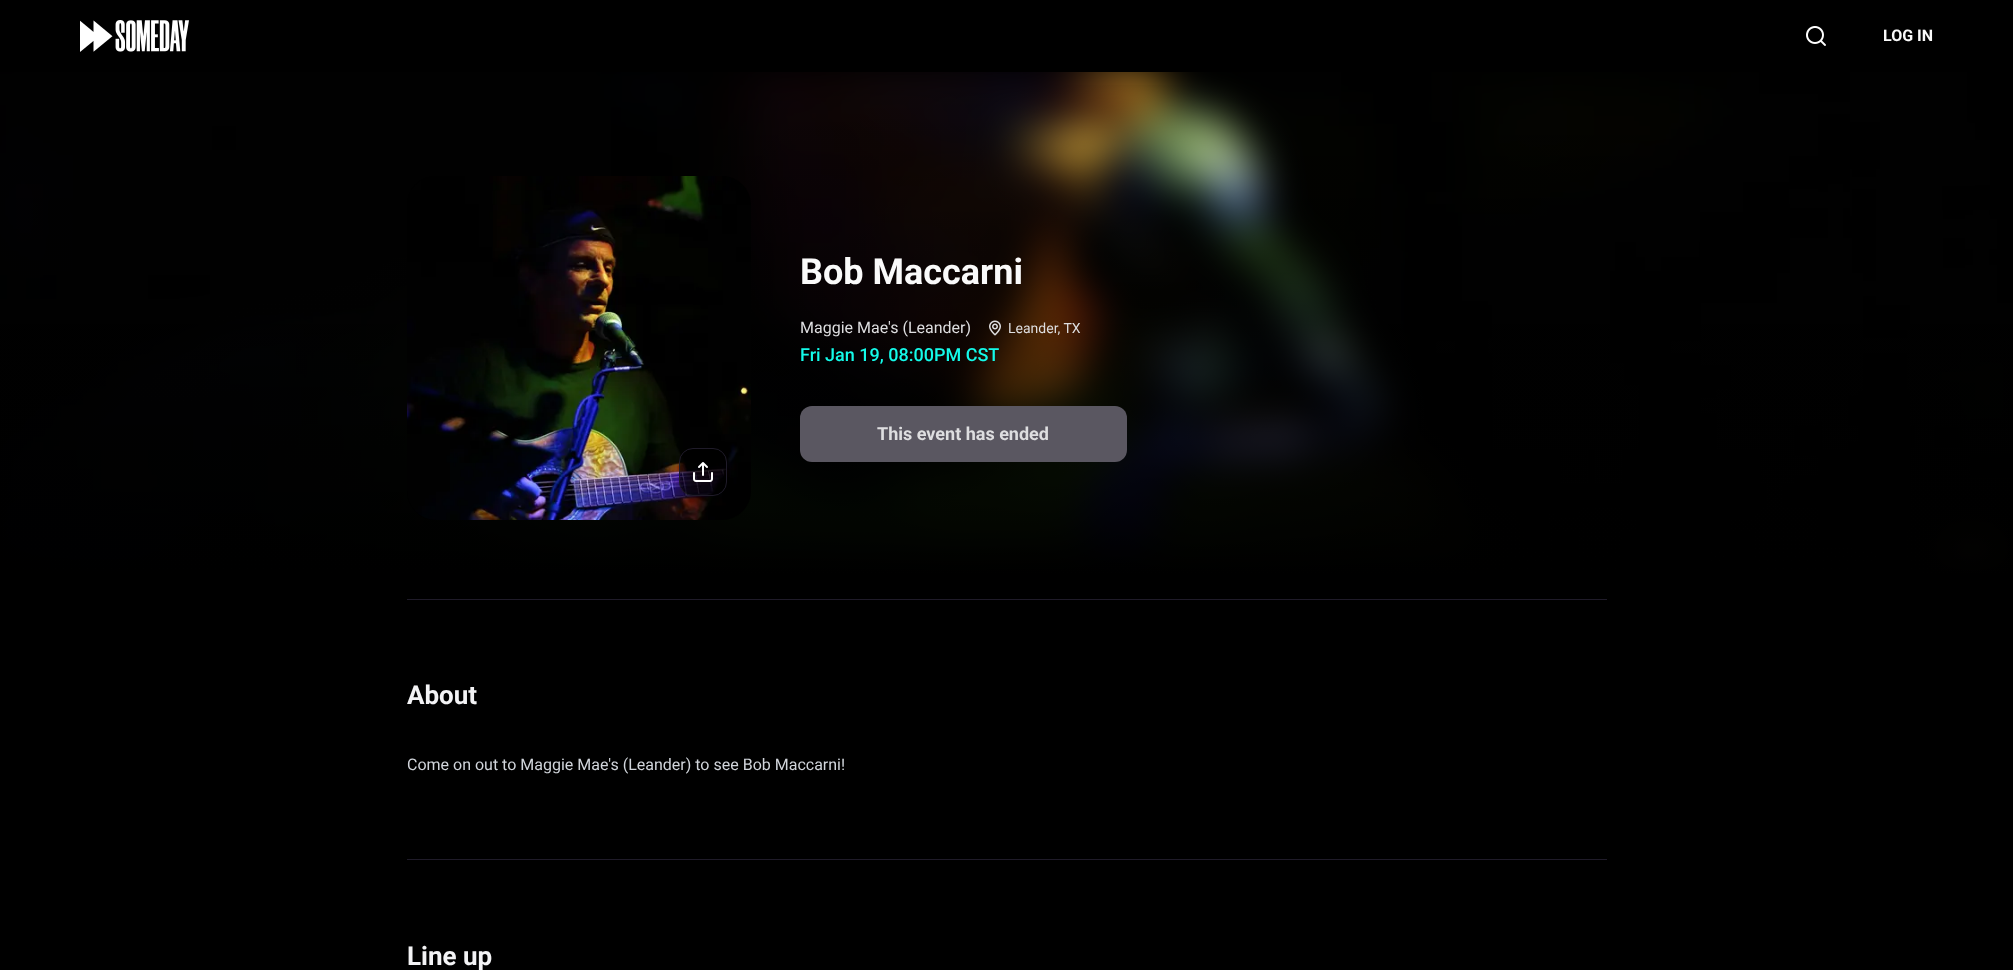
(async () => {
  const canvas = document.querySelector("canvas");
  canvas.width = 2013;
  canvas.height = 970;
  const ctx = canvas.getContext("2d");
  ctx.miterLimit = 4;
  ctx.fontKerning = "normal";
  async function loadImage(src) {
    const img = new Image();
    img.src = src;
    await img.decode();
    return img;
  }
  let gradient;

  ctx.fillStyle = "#000000";
  ctx.fillRect(0, 0, 2013, 970);
  ctx.drawImage(await loadImage("img/1.png"), 80, 20, 109, 32);
  ctx.drawImage(await loadImage("img/2.png"), 1806, 26, 20, 20);
  ctx.drawImage(await loadImage("img/3.png"), 0, 72, 2013, 501);
  gradient = ctx.createLinearGradient(1007, 576, 1007, 72);
  gradient.addColorStop(0, "#000000");
  gradient.addColorStop(1, "rgba(0, 0, 0, 0)");
  ctx.fillStyle = gradient;
  ctx.fillRect(0, 85, 2013, 488);
  ctx.drawImage(await loadImage("img/4.png"), 407, 176, 344, 344);
  ctx.fillStyle = "rgba(0, 0, 0, 0.6)";
  ctx.beginPath();
  ctx.roundRect(679.5, 448.5, 47, 47, 13.5);
  ctx.fill();
  ctx.strokeStyle = "#1f1b29";
  ctx.stroke();
  ctx.drawImage(await loadImage("img/5.png"), 693, 462, 20, 20);
  ctx.drawImage(await loadImage("img/6.png"), 989, 320, 12, 16);
  ctx.fillStyle = "#5a5761";
  ctx.beginPath();
  ctx.roundRect(800, 406, 327, 56, 12);
  ctx.fill();
  ctx.fillStyle = "#1f1b29";
  ctx.fillRect(407, 599, 1200, 1);
  ctx.fillRect(407, 859, 1200, 1);
  ctx.font = "bold 16px Roboto";
  ctx.fillStyle = "#fafafa";
  ctx.fillText("LOG IN", 1883, 41);
  ctx.font = "bold 36px Roboto";
  ctx.fillText("Bob Maccarni", 800, 284);
  ctx.font = "16px Roboto";
  ctx.fillStyle = "#dedee0";
  ctx.fillText("Maggie Mae's (Leander)", 800, 333);
  ctx.font = "14px Roboto";
  ctx.fillText("Leander, TX", 1008, 333);
  ctx.font = "500 18px Roboto";
  ctx.fillStyle = "#14fae9";
  ctx.fillText("Fri Jan 19, 08:00PM CST", 800, 361);
  ctx.font = "bold 18px Roboto";
  ctx.fillStyle = "#dedee0";
  ctx.fillText("This event has ended", 877, 440);
  ctx.font = "bold 26px Roboto";
  ctx.fillStyle = "#f3f3f5";
  ctx.fillText("About", 407, 704);
  ctx.font = "16px Roboto";
  ctx.fillStyle = "#d1d5db";
  ctx.fillText("Come on out to Maggie Mae's (Leander) to see Bob Maccarni!", 407, 770);
  ctx.font = "bold 26px Roboto";
  ctx.fillStyle = "#f3f3f5";
  ctx.fillText("Line up", 407, 965);
})();
